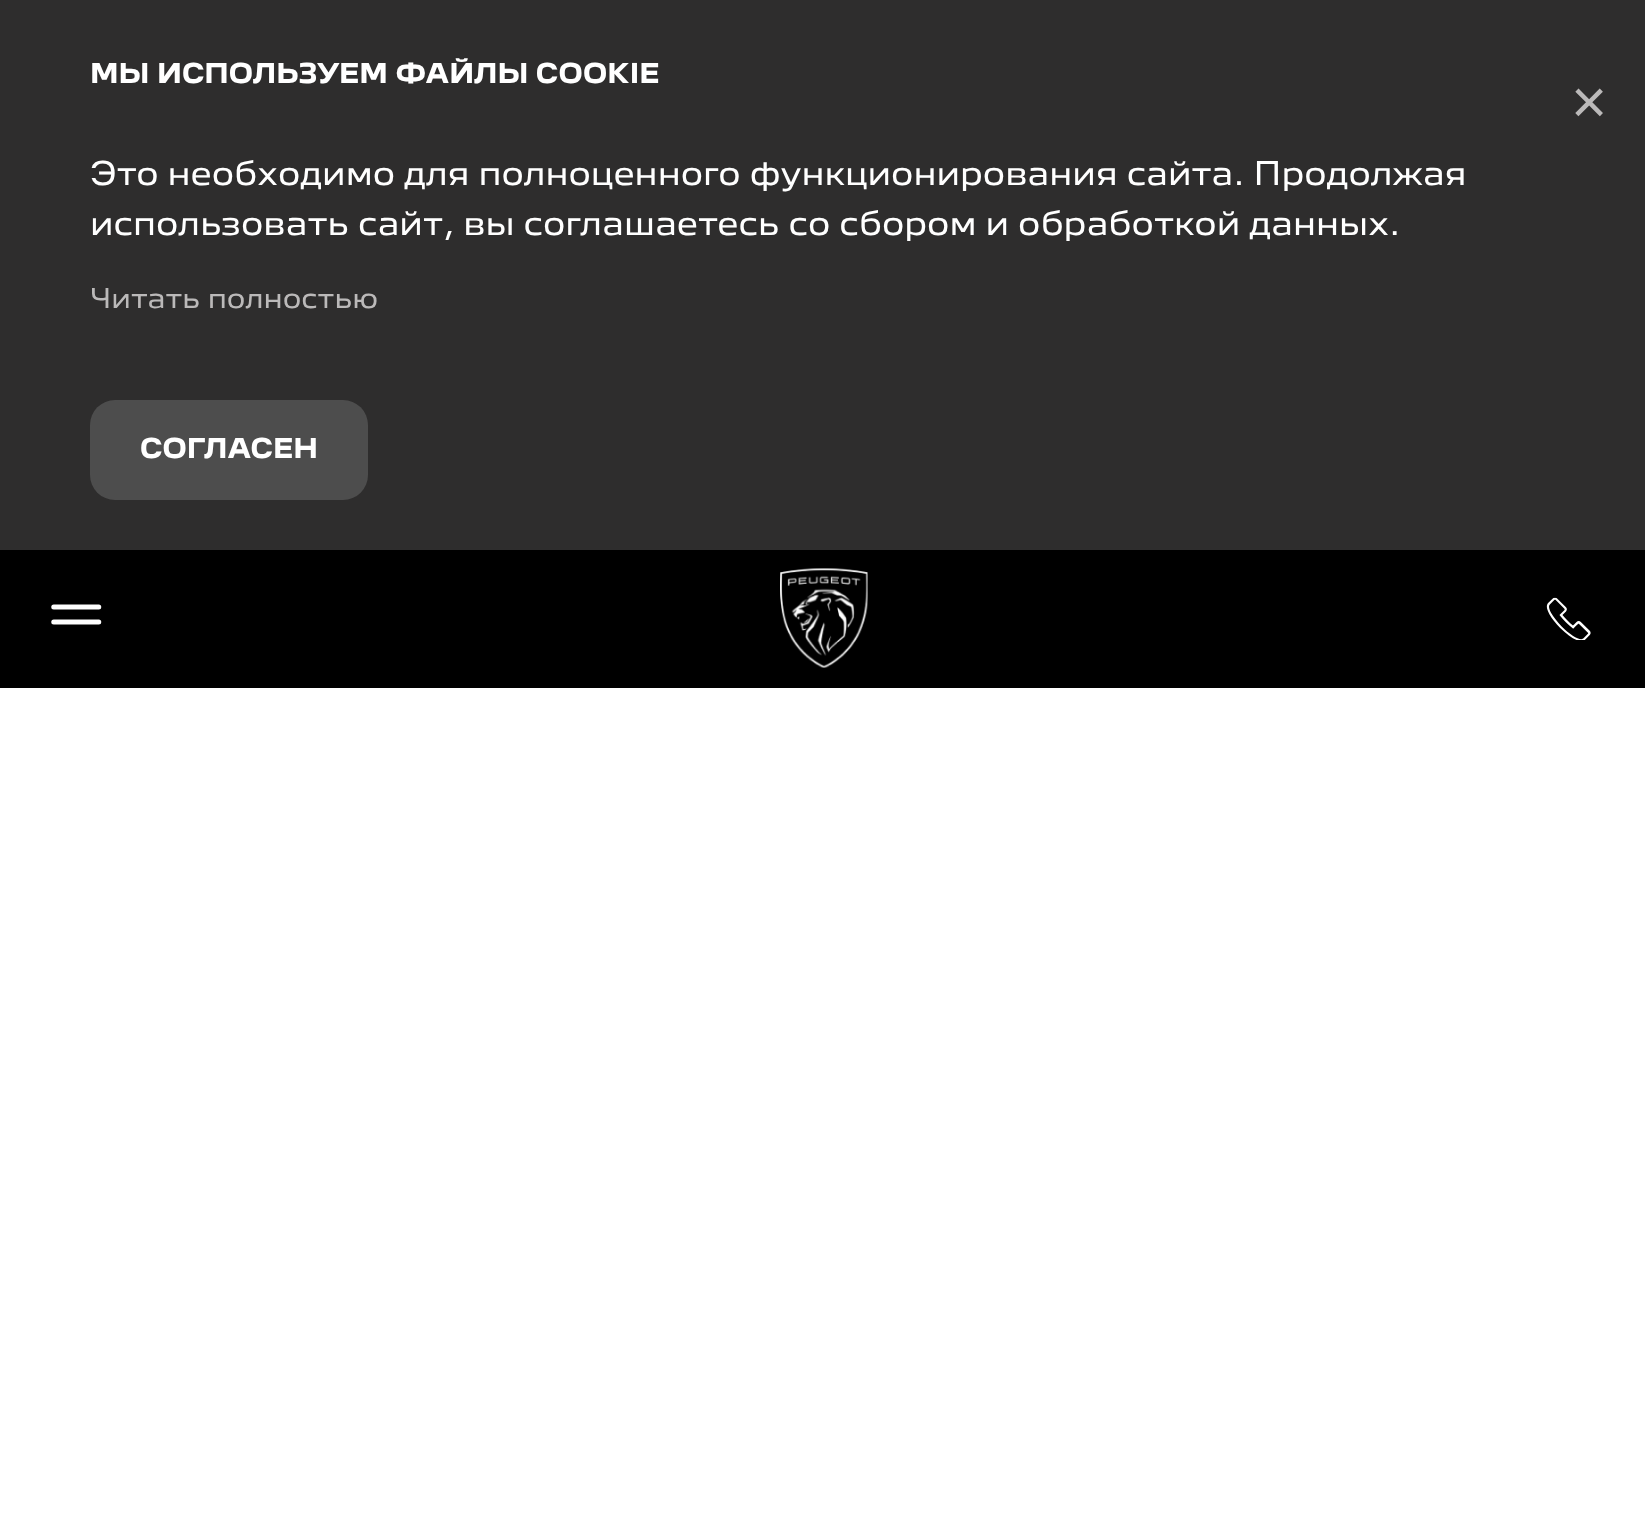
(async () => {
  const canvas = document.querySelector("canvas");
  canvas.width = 1645;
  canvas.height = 1533;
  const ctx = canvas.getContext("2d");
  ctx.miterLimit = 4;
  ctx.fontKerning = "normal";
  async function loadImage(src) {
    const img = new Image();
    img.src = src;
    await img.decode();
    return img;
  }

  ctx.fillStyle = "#ffffff";
  ctx.fillRect(0, 0, 1645, 1533);
  ctx.fillStyle = "#000000";
  ctx.fillRect(0, 550, 1645, 138);
  ctx.drawImage(await loadImage("img/1.png"), 51, 604, 51, 21);
  ctx.drawImage(await loadImage("img/2.png"), 780, 568, 88, 100);
  ctx.drawImage(await loadImage("img/3.png"), 1546, 597, 45, 43);
  ctx.fillStyle = "rgba(0, 0, 0, 0.04)";
  ctx.filter = "blur(25px)";
  ctx.beginPath();
  ctx.rect(0, 38, 1645, 550);
  ctx.fill();
  ctx.filter = "none";
  ctx.fillStyle = "#2e2d2d";
  ctx.fillRect(0, 0, 1645, 550);
  ctx.fillStyle = "#4d4d4d";
  ctx.beginPath();
  ctx.roundRect(90, 400, 278, 100, 25);
  ctx.fill();
  ctx.font = "bold 25px 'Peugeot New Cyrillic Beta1'";
  ctx.fillStyle = "#ffffff";
  ctx.fillText("МЫ ИСПОЛЬЗУЕМ ФАЙЛЫ COOKIE", 90, 83);
  ctx.font = "62px Liberation Sans";
  ctx.fillStyle = "#bbb9b9";
  ctx.fillText("×", 1571, 123);
  ctx.font = "30px 'Peugeot New Cyrillic Beta1'";
  ctx.fillStyle = "#ffffff";
  ctx.fillText("Это необходимо для полноценного функционирования сайта. Продолжая", 90, 185);
  ctx.fillText("использовать сайт, вы соглашаетесь со сбором и обработкой данных.", 90, 235);
  ctx.font = "25px 'Peugeot New Cyrillic Beta1'";
  ctx.fillStyle = "#bbb9b9";
  ctx.fillText("Читать полностью", 90, 308);
  ctx.font = "bold 25px 'Peugeot New Cyrillic Beta1'";
  ctx.fillStyle = "#ffffff";
  ctx.fillText("СОГЛАСЕН", 140, 458);
})();
